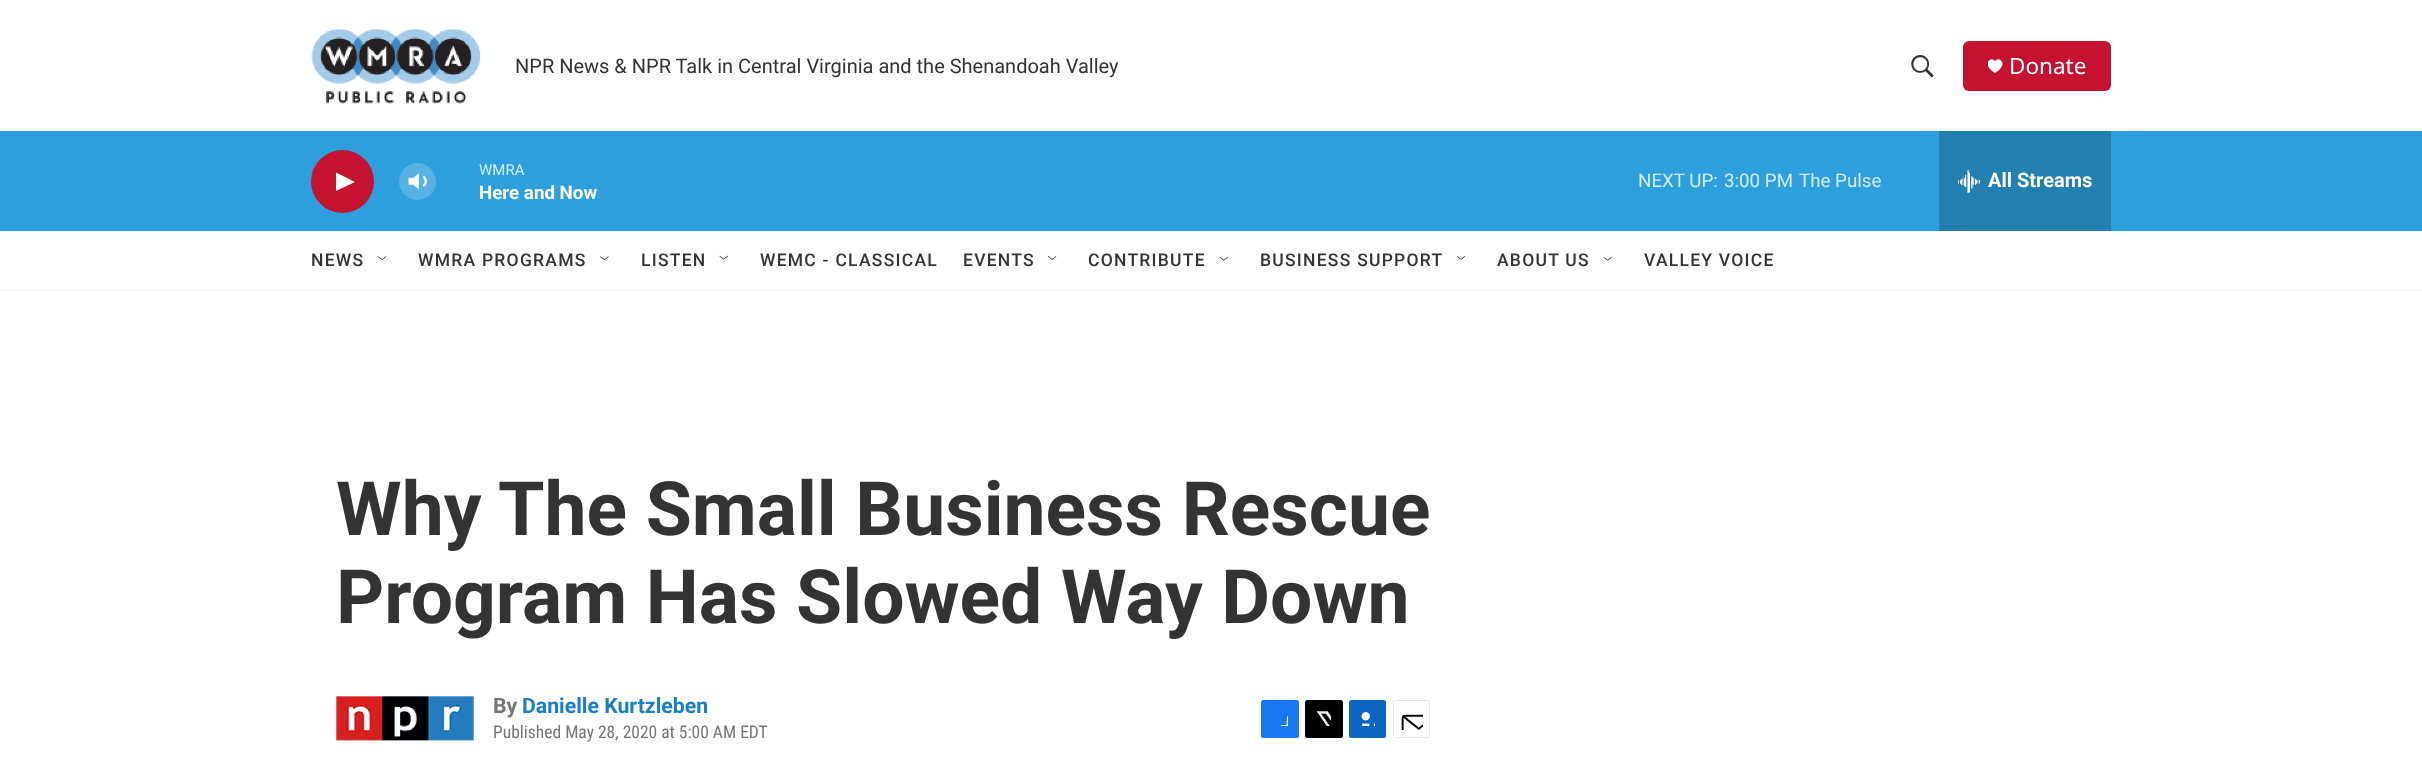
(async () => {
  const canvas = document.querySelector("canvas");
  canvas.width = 2422;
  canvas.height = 762;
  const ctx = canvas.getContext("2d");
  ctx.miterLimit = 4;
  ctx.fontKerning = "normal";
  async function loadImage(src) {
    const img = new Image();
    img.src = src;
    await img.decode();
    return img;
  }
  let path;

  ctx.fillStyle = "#ffffff";
  ctx.fillRect(0, 0, 2422, 762);
  ctx.fillStyle = "#f5f5f5";
  ctx.fillRect(0, 290, 2422, 1);
  ctx.drawImage(await loadImage("img/1.png"), 311, 29, 170, 75);
  ctx.drawImage(await loadImage("img/2.png"), 1911, 55, 23, 23);
  ctx.fillStyle = "#c41230";
  ctx.beginPath();
  ctx.roundRect(1963, 41, 148, 50, 6);
  ctx.fill();
  ctx.save();
  ctx.beginPath();
  ctx.rect(1988, 59, 15, 15);
  ctx.clip();
  ctx.fillStyle = "#ffffff";
  path = new Path2D("M1995 61.5C1992.5 55 1979.5 63.5 1995 73C2010.5 63.5 1997.5 55 1995 61.5Z");
  ctx.fill(path);
  ctx.restore();
  ctx.fillStyle = "#2d9fdd";
  ctx.fillRect(0, 131, 2422, 100);
  ctx.fillStyle = "#c41230";
  ctx.beginPath();
  ctx.arc(342.5, 181.5, 31.5, 0, Math.PI * 2);
  ctx.fill();
  ctx.fillStyle = "#ffffff";
  path = new Path2D("M336 172.5L355 182L336 191Z");
  ctx.fill(path);
  ctx.drawImage(await loadImage("img/3.png"), 408, 173, 19, 17);
  ctx.fillStyle = "rgba(255, 255, 255, 0.2)";
  ctx.beginPath();
  ctx.arc(417.5, 181.5, 18.5, 0, Math.PI * 2);
  ctx.fill();
  ctx.fillStyle = "#247fb1";
  ctx.fillRect(1939, 131, 172, 100);
  ctx.drawImage(await loadImage("img/4.png"), 1958, 170, 22, 23);
  ctx.drawImage(await loadImage("img/5.png"), 378, 256, 9, 4);
  ctx.drawImage(await loadImage("img/6.png"), 600, 256, 9, 5);
  ctx.drawImage(await loadImage("img/7.png"), 719, 255, 9, 5);
  ctx.drawImage(await loadImage("img/8.png"), 1048, 255, 9, 5);
  ctx.drawImage(await loadImage("img/9.png"), 1219, 256, 9, 5);
  ctx.drawImage(await loadImage("img/10.png"), 1456, 255, 10, 5);
  ctx.drawImage(await loadImage("img/11.png"), 1603, 256, 9, 5);
  ctx.drawImage(await loadImage("img/12.png"), 336, 696, 138, 45);
  ctx.fillStyle = "#1778f2";
  ctx.beginPath();
  ctx.roundRect(1261, 700, 38, 38, 2.5);
  ctx.fill();
  ctx.drawImage(await loadImage("img/13.png"), 1281, 715, 7, 11);
  ctx.fillStyle = "#000000";
  ctx.beginPath();
  ctx.roundRect(1305, 700, 38, 38, 2.5);
  ctx.fill();
  ctx.drawImage(await loadImage("img/14.png"), 1316, 711, 15, 15);
  ctx.fillStyle = "#0a66c1";
  ctx.beginPath();
  ctx.roundRect(1349, 700, 37, 38, 2.5);
  ctx.fill();
  ctx.drawImage(await loadImage("img/15.png"), 1361, 712, 14, 14);
  ctx.beginPath();
  ctx.roundRect(1393.5, 700.5, 36, 37, 2);
  ctx.strokeStyle = "#e6e6e6";
  ctx.stroke();
  ctx.drawImage(await loadImage("img/16.png"), 1401, 714, 22, 16);
  ctx.font = "20px Roboto";
  ctx.fillStyle = "#333333";
  ctx.fillText("NPR News & NPR Talk in Central Virginia and the Shenandoah Valley", 515, 73);
  ctx.font = "22.5px Noto Sans";
  ctx.fillStyle = "#ffffff";
  ctx.fillText("Donate", 2009, 74);
  ctx.font = "15px Roboto";
  ctx.fillStyle = "#d5ecf8";
  ctx.fillText("WMRA", 479, 175);
  ctx.font = "bold 18.75px 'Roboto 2'";
  ctx.fillStyle = "#ffffff";
  ctx.fillText("Here and Now", 479, 199);
  ctx.font = "18.75px Roboto";
  ctx.fillStyle = "#d5ecf8";
  for (const [text, x, y] of [
    ["NEXT UP:", 1638, 187],
    ["3:00 PM", 1724, 187],
    ["The Pulse", 1799, 187],
  ]) {
    ctx.fillText(text, x, y);
  }
  ctx.font = "bold 20px 'Roboto 2'";
  ctx.fillStyle = "#ffffff";
  ctx.fillText("All Streams", 1988, 187);
  ctx.letterSpacing = "1.25px";
  ctx.font = "500 17.5px Roboto";
  ctx.fillStyle = "#333333";
  for (const [text, x, y] of [
    ["NEWS", 311, 266],
    ["WMRA PROGRAMS", 418, 266],
    ["LISTEN", 641, 266],
    ["WEMC - CLASSICAL", 760, 266],
    ["EVENTS", 963, 266],
    ["CONTRIBUTE", 1088, 266],
    ["BUSINESS SUPPORT", 1260, 266],
    ["ABOUT US", 1497, 266],
    ["VALLEY VOICE", 1644, 266],
  ]) {
    ctx.fillText(text, x, y);
  }
  ctx.letterSpacing = "0px";
  ctx.font = "bold 75px Roboto";
  ctx.fillText("Why The Small Business Rescue", 336, 535);
  ctx.fillText("Program Has Slowed Way Down", 336, 623);
  ctx.font = "bold 21.25px Roboto";
  ctx.fillStyle = "#767676";
  ctx.fillText("By", 493, 713);
  ctx.fillStyle = "#1a7fc3";
  ctx.fillText("Danielle Kurtzleben", 522, 713);
  ctx.font = "17.5px Roboto Condensed";
  ctx.fillStyle = "#767676";
  ctx.fillText("Published May 28, 2020 at 5:00 AM EDT", 493, 738);
})();
